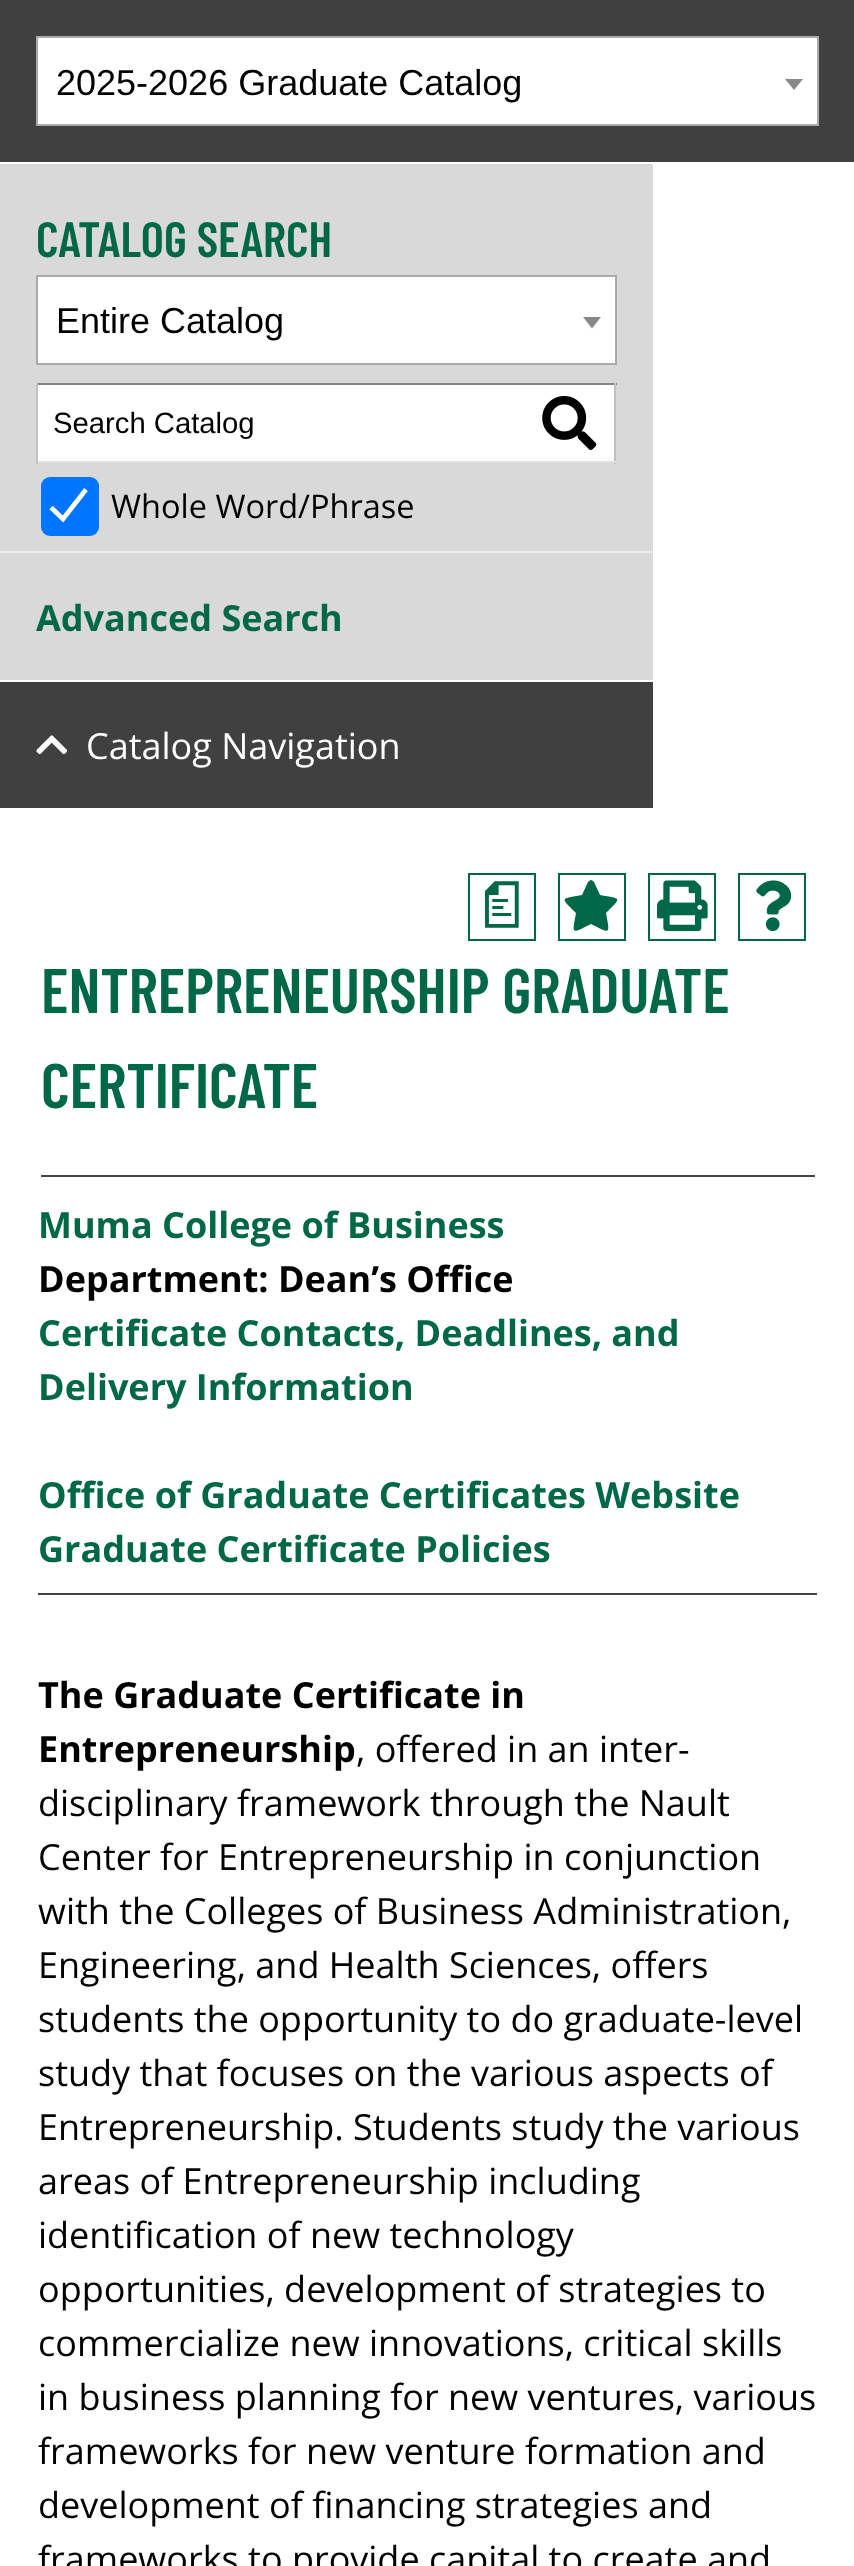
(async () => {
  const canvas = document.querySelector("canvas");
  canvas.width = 854;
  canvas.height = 2566;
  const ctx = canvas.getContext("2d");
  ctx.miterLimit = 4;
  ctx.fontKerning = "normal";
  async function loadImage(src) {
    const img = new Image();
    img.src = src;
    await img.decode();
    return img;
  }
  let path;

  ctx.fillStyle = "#ffffff";
  ctx.fillRect(0, 0, 854, 2566);
  ctx.fillStyle = "#404040";
  ctx.fillRect(0, 0, 854, 162);
  ctx.fillStyle = "#ffffff";
  ctx.beginPath();
  ctx.rect(37, 37, 781, 88);
  ctx.fill();
  ctx.strokeStyle = "#aaaaaa";
  ctx.lineWidth = 2;
  ctx.stroke();
  ctx.fillStyle = "#888888";
  path = new Path2D("M785 79H803L794 90Z");
  ctx.fill(path);
  ctx.fillStyle = "#d9d9d9";
  ctx.fillRect(0, 164, 653, 516);
  ctx.fillStyle = "#ffffff";
  ctx.beginPath();
  ctx.rect(37, 276, 579, 88);
  ctx.fill();
  ctx.stroke();
  ctx.fillStyle = "#888888";
  path = new Path2D("M583 317H601L592 328.5Z");
  ctx.fill(path);
  for (const [x, y, w, h, color] of [
    [38, 385, 576, 76, "#ffffff"],
    [36, 383, 581, 2, "#848484"],
    [614, 383, 2, 81, "#c1c1c1"],
    [36, 461, 581, 2, "#e1e1e1"],
    [36, 383, 2, 81, "#c1c1c1"],
  ]) {
    ctx.fillStyle = color;
    ctx.fillRect(x, y, w, h);
  }
  ctx.drawImage(await loadImage("img/1.png"), 542, 396, 55, 54);
  ctx.fillStyle = "#0075ff";
  ctx.beginPath();
  ctx.roundRect(41, 477, 58, 59, 9);
  ctx.fill();
  path = new Path2D("M51 507.5L63 519L86 489.5");
  ctx.strokeStyle = "#ffffff";
  ctx.lineWidth = 4.7;
  ctx.stroke(path);
  ctx.fillStyle = "#ececec";
  ctx.fillRect(0, 551, 653, 2);
  ctx.fillStyle = "#404040";
  ctx.fillRect(0, 682, 653, 126);
  ctx.drawImage(await loadImage("img/2.png"), 36, 735, 32, 20);
  ctx.strokeStyle = "#006747";
  ctx.lineWidth = 2;
  ctx.strokeRect(469, 874, 66, 66);
  ctx.strokeRect(559, 874, 66, 66);
  ctx.fillStyle = "#006747";
  path = new Path2D("M588 882C589 881 590 880 591 880C592 880 593 881 594 882L600 895C622 899 622 897 606 913C610 935 611 934 591 924C571 934 572 935 576 913C560 897 560 899 582 895Z");
  ctx.fill(path);
  ctx.strokeRect(649, 874, 66, 66);
  ctx.drawImage(await loadImage("img/3.png"), 657, 880, 51, 52);
  ctx.strokeRect(739, 874, 66, 66);
  ctx.drawImage(await loadImage("img/4.png"), 756, 880, 36, 52);
  ctx.fillStyle = "#444444";
  ctx.fillRect(41, 1175, 774, 2);
  ctx.fillRect(38, 1593, 779, 2);
  ctx.font = "36px Liberation Sans";
  ctx.fillStyle = "#000000";
  ctx.fillText("2025-2026 Graduate Catalog", 56, 95);
  ctx.font = "600 49.5px Barlow Condensed";
  ctx.fillStyle = "#006747";
  ctx.fillText("CATALOG SEARCH", 36, 257);
  ctx.font = "36px Liberation Sans";
  ctx.fillStyle = "#000000";
  ctx.fillText("Entire Catalog", 56, 333);
  ctx.font = "29.25px Liberation Sans";
  ctx.fillText("Search Catalog", 53, 433);
  ctx.font = "32.5px Open Sans";
  ctx.fillText("Whole Word/Phrase", 111, 518);
  ctx.font = "bold 36px Open Sans";
  ctx.fillStyle = "#006747";
  ctx.fillText("Advanced Search", 36, 631);
  ctx.font = "36px Open Sans";
  ctx.fillStyle = "#ffffff";
  ctx.fillText("Catalog Navigation", 86, 759);
  ctx.font = "500 51px 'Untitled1'";
  ctx.fillStyle = "#006747";
  ctx.fillText("a", 476, 920);
  ctx.font = "600 63px Barlow Condensed";
  ctx.fillText("ENTREPRENEURSHIP GRADUATE", 41, 1013);
  ctx.fillText("CERTIFICATE", 41, 1108);
  ctx.font = "bold 36px Open Sans";
  ctx.fillText("Muma College of Business", 38, 1238);
  ctx.fillStyle = "#000000";
  ctx.fillText("Department: Dean’s Office", 38, 1292);
  ctx.fillStyle = "#006747";
  for (const [text, x, y] of [
    ["Certificate Contacts, Deadlines, and", 38, 1346],
    ["Delivery Information", 38, 1400],
    ["Office of Graduate Certificates Website", 38, 1508],
    ["Graduate Certificate Policies", 38, 1562],
  ]) {
    ctx.fillText(text, x, y);
  }
  ctx.fillStyle = "#000000";
  ctx.fillText("The Graduate Certificate in", 38, 1708);
  ctx.fillText("Entrepreneurship", 38, 1762);
  ctx.font = "36px Open Sans";
  for (const [text, x, y] of [
    [", offered in an inter-", 356, 1762],
    ["disciplinary framework through the Nault", 38, 1816],
    ["Center for Entrepreneurship in conjunction", 38, 1870],
    ["with the Colleges of Business Administration,", 38, 1924],
    ["Engineering, and Health Sciences, offers", 38, 1978],
    ["students the opportunity to do graduate-level", 38, 2032],
    ["study that focuses on the various aspects of", 38, 2086],
    ["Entrepreneurship. Students study the various", 38, 2140],
    ["areas of Entrepreneurship including", 38, 2194],
    ["identification of new technology", 38, 2248],
    ["opportunities, development of strategies to", 38, 2302],
    ["commercialize new innovations, critical skills", 38, 2356],
    ["in business planning for new ventures, various", 38, 2410],
    ["frameworks for new venture formation and", 38, 2464],
    ["development of financing strategies and", 38, 2518],
    ["frameworks to provide capital to create and", 38, 2572],
  ]) {
    ctx.fillText(text, x, y);
  }
})();
